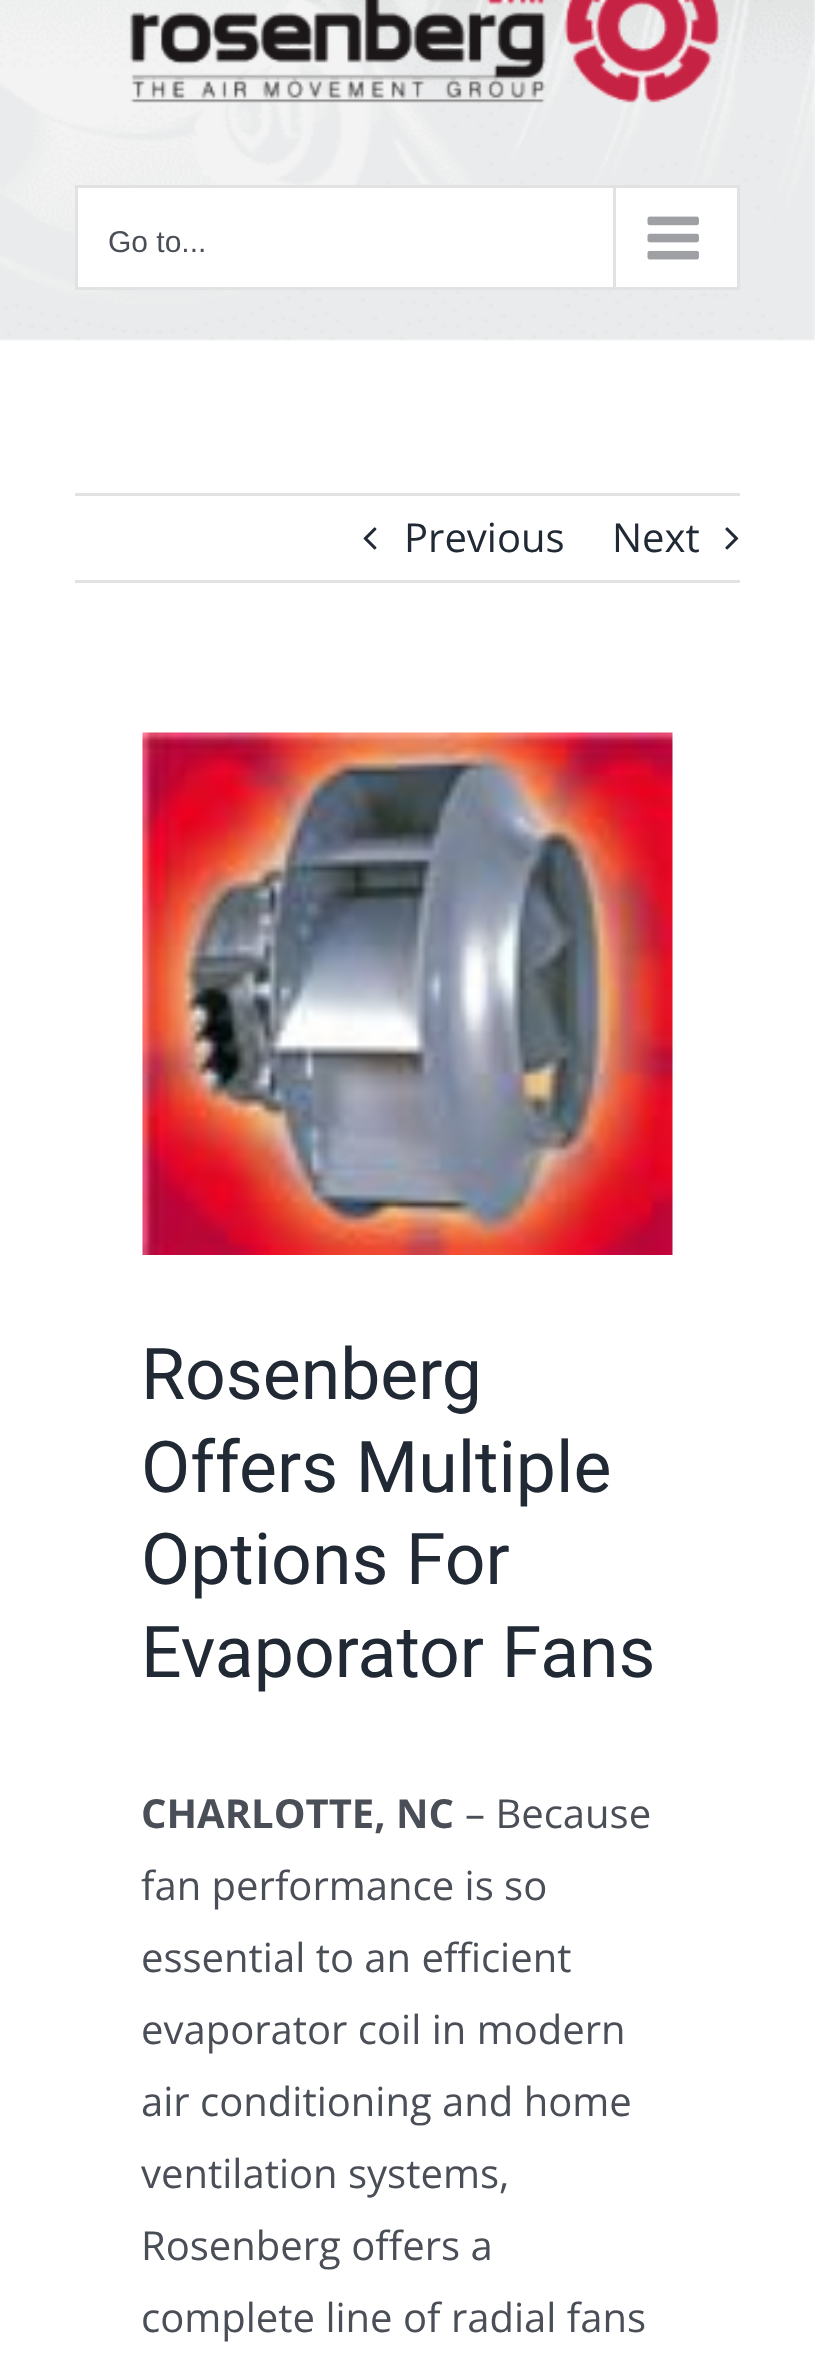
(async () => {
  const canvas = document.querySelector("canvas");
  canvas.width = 815;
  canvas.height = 2365;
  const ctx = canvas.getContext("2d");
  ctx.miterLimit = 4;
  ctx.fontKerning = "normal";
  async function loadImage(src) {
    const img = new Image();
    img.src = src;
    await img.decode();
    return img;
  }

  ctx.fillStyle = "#ffffff";
  ctx.fillRect(0, 0, 815, 2365);
  ctx.drawImage(await loadImage("img/1.png"), 0, 0, 815, 341);
  ctx.drawImage(await loadImage("img/2.png"), 129, 0, 591, 103);
  ctx.beginPath();
  ctx.rect(76.5, 186.5, 662, 102);
  ctx.fill();
  ctx.strokeStyle = "#e2e2e2";
  ctx.lineWidth = 3;
  ctx.stroke();
  ctx.fillStyle = "#e2e2e2";
  ctx.fillRect(613, 188, 3, 100);
  ctx.drawImage(await loadImage("img/3.png"), 647, 216, 52, 44);
  ctx.fillRect(75, 493, 665, 3);
  ctx.fillRect(75, 580, 665, 3);
  ctx.drawImage(await loadImage("img/4.png"), 363, 527, 14, 23);
  ctx.drawImage(await loadImage("img/5.png"), 725, 527, 14, 23);
  ctx.drawImage(await loadImage("img/6.png"), 142, 732, 531, 523);
  ctx.font = "30px Liberation Sans";
  ctx.fillStyle = "#4a4e57";
  ctx.fillText("Go to...", 108, 252);
  ctx.font = "40px Open Sans";
  ctx.fillStyle = "#212934";
  ctx.fillText("Previous", 404, 552);
  ctx.fillText("Next", 612, 552);
  ctx.font = "71.5px Roboto";
  for (const [text, x, y] of [
    ["Rosenberg", 141, 1399],
    ["Offers Multiple", 141, 1492],
    ["Options For", 141, 1584],
    ["Evaporator Fans", 141, 1677],
  ]) {
    ctx.fillText(text, x, y);
  }
  ctx.font = "bold 40px Open Sans";
  ctx.fillStyle = "#4a4e57";
  ctx.fillText("CHARLOTTE, NC", 141, 1828);
  ctx.font = "40px Open Sans";
  for (const [text, x, y] of [
    ["– Because", 465, 1828],
    ["fan performance is so", 141, 1900],
    ["essential to an efficient", 141, 1972],
    ["evaporator coil in modern", 141, 2044],
    ["air conditioning and home", 141, 2116],
    ["ventilation systems,", 141, 2188],
    ["Rosenberg offers a", 141, 2260],
    ["complete line of radial fans", 141, 2332],
  ]) {
    ctx.fillText(text, x, y);
  }
})();
